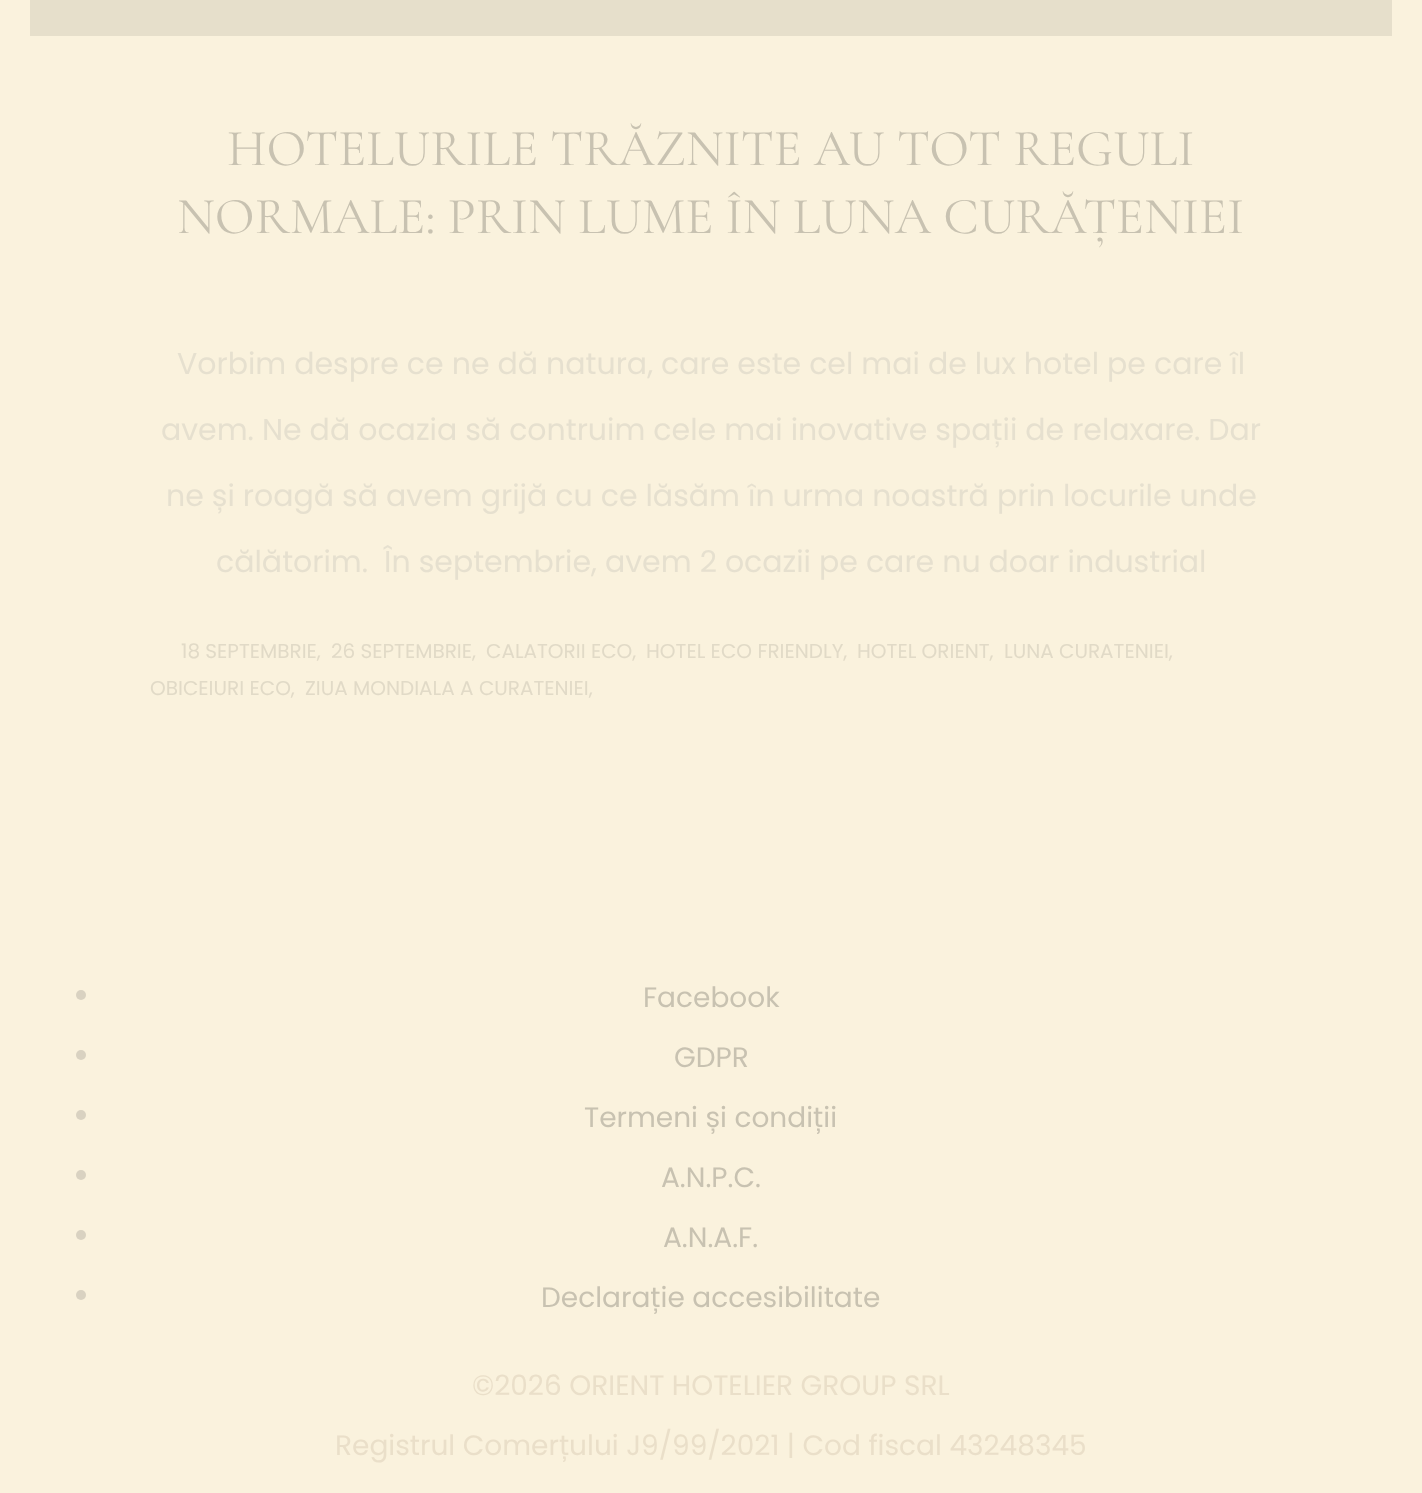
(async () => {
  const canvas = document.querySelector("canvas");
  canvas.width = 1422;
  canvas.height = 1493;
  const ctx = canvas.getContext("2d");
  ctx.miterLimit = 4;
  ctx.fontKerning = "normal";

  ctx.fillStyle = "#faf2dd";
  ctx.fillRect(0, 0, 1422, 1493);
  ctx.fillStyle = "#e6dfcb";
  ctx.fillRect(30, 0, 1362, 36);
  ctx.fillStyle = "#d9d2c1";
  ctx.beginPath();
  ctx.arc(81, 995, 5, 0, Math.PI * 2);
  ctx.fill();
  ctx.beginPath();
  ctx.arc(81, 1055, 5, 0, Math.PI * 2);
  ctx.fill();
  ctx.beginPath();
  ctx.arc(81, 1115, 5, 0, Math.PI * 2);
  ctx.fill();
  ctx.beginPath();
  ctx.arc(81, 1175, 5, 0, Math.PI * 2);
  ctx.fill();
  ctx.beginPath();
  ctx.arc(81, 1235, 5, 0, Math.PI * 2);
  ctx.fill();
  ctx.beginPath();
  ctx.arc(81, 1295, 5, 0, Math.PI * 2);
  ctx.fill();
  ctx.font = "52px Cormorant Garamond";
  ctx.fillStyle = "#c8c2b1";
  ctx.fillText("HOTELURILE TRĂZNITE AU TOT REGULI", 227, 165);
  ctx.fillText("NORMALE: PRIN LUME ÎN LUNA CURĂȚENIEI", 177, 233);
  ctx.font = "30px Poppins";
  ctx.fillStyle = "#e6e0cf";
  for (const [text, x, y] of [
    ["Vorbim despre ce ne dă natura, care este cel mai de lux hotel pe care îl", 177, 374],
    ["avem. Ne dă ocazia să contruim cele mai inovative spații de relaxare. Dar", 161, 440],
    ["ne și roagă să avem grijă cu ce lăsăm în urma noastră prin locurile unde", 166, 506],
    ["călătorim.  În septembrie, avem 2 ocazii pe care nu doar industrial", 216, 572],
  ]) {
    ctx.fillText(text, x, y);
  }
  ctx.font = "20px Poppins";
  ctx.fillStyle = "#e1dac7";
  for (const [text, x, y] of [
    ["18 SEPTEMBRIE,", 181, 658],
    ["26 SEPTEMBRIE,", 331, 658],
    ["CALATORII ECO,", 486, 658],
    ["HOTEL ECO FRIENDLY,", 646, 658],
    ["HOTEL ORIENT,", 857, 658],
    ["LUNA CURATENIEI,", 1004, 658],
    ["OBICEIURI ECO,", 150, 695],
    ["ZIUA MONDIALA A CURATENIEI,", 305, 695],
  ]) {
    ctx.fillText(text, x, y);
  }
  ctx.font = "28px Poppins";
  ctx.fillStyle = "#c8c2b1";
  for (const [text, x, y] of [
    ["Facebook", 643, 1007],
    ["GDPR", 674, 1067],
    ["Termeni și condiții", 584, 1127],
    ["A.N.P.C.", 661, 1187],
    ["A.N.A.F.", 663, 1247],
    ["Declarație accesibilitate", 541, 1307],
  ]) {
    ctx.fillText(text, x, y);
  }
  ctx.fillStyle = "#eadfc9";
  ctx.fillText("©2026 ORIENT HOTELIER GROUP SRL", 472, 1395);
  ctx.fillText("Registrul Comerțului J9/99/2021 | Cod fiscal 43248345", 335, 1455);
})();
